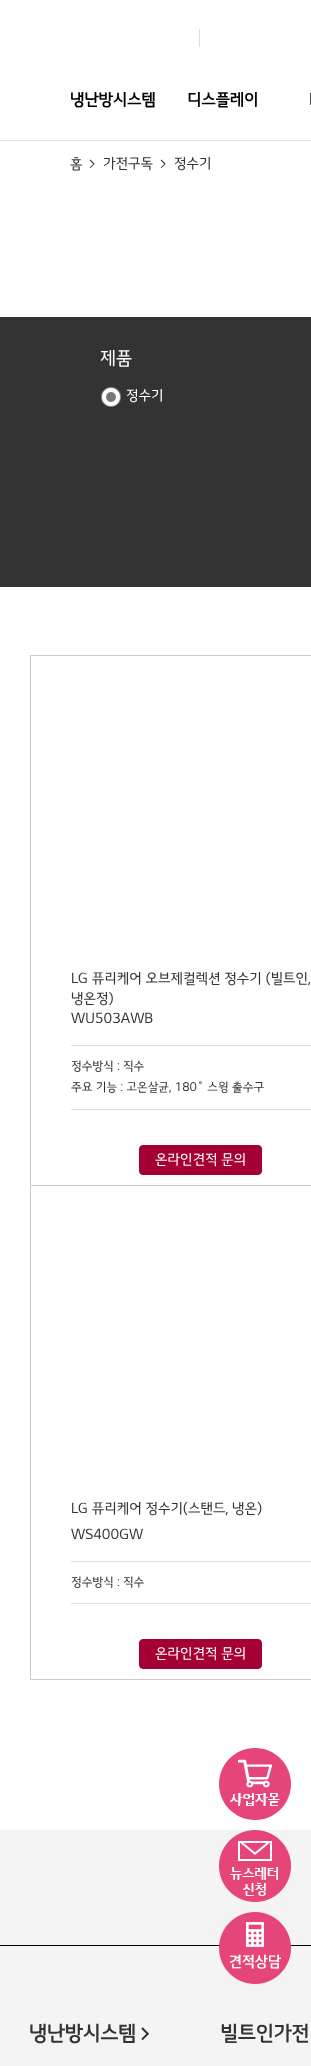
(async () => {
  const canvas = document.querySelector("canvas");
  canvas.width = 311;
  canvas.height = 2066;
  const ctx = canvas.getContext("2d");
  ctx.miterLimit = 4;
  ctx.fontKerning = "normal";
  async function loadImage(src) {
    const img = new Image();
    img.src = src;
    await img.decode();
    return img;
  }

  ctx.fillStyle = "#ffffff";
  ctx.fillRect(0, 0, 311, 2066);
  for (const [x, y, w, h, color] of [
    [199, 29, 1, 18, "#dddddd"],
    [0, 140, 311, 1, "#dddddd"],
    [0, 317, 311, 270, "#333333"],
  ]) {
    ctx.fillStyle = color;
    ctx.fillRect(x, y, w, h);
  }
  ctx.drawImage(await loadImage("img/1.png"), 101, 387, 20, 20);
  ctx.strokeStyle = "#cccccc";
  ctx.strokeRect(30.5, 655.5, 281, 530);
  ctx.fillStyle = "#dddddd";
  ctx.fillRect(71, 1045, 240, 1);
  ctx.fillRect(71, 1109, 240, 1);
  ctx.fillStyle = "#a50034";
  ctx.beginPath();
  ctx.roundRect(139.5, 1145.5, 122, 29, 3.5);
  ctx.fill();
  ctx.strokeStyle = "#a50034";
  ctx.stroke();
  for (const [x, y, w, h, color] of [
    [30, 1679, 281, 1, "#cccccc"],
    [30, 1186, 1, 494, "#cccccc"],
    [71, 1561, 240, 1, "#dddddd"],
    [71, 1603, 240, 1, "#dddddd"],
  ]) {
    ctx.fillStyle = color;
    ctx.fillRect(x, y, w, h);
  }
  ctx.fillStyle = "#a50034";
  ctx.beginPath();
  ctx.roundRect(139.5, 1639.5, 122, 29, 3.5);
  ctx.fill();
  ctx.stroke();
  ctx.drawImage(await loadImage("img/2.png"), 219, 1748, 72, 72);
  ctx.fillStyle = "#f4f4f4";
  ctx.fillRect(0, 1830, 311, 236);
  ctx.drawImage(await loadImage("img/3.png"), 219, 1830, 72, 72);
  ctx.fillStyle = "#000000";
  ctx.fillRect(0, 1945, 311, 1);
  ctx.drawImage(await loadImage("img/4.png"), 219, 1912, 72, 72);
  ctx.font = "bold 16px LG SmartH";
  for (const [text, x, y] of [
    ["냉난방시스템", 70, 105],
    ["디스플레이", 187, 105],
    ["I", 309, 105],
  ]) {
    ctx.fillText(text, x, y);
  }
  ctx.font = "14px LG SmartH";
  ctx.fillStyle = "#333333";
  for (const [text, x, y] of [
    ["홈", 70, 168],
    [">", 88, 168],
    ["가전구독", 103, 168],
    [">", 159, 168],
    ["정수기", 174, 168],
  ]) {
    ctx.fillText(text, x, y);
  }
  ctx.font = "18px LG SmartH";
  ctx.fillStyle = "#ffffff";
  ctx.fillText("제품", 100, 364);
  ctx.font = "14px LG SmartH";
  ctx.fillText("정수기", 126, 400);
  ctx.fillStyle = "#333333";
  for (const [text, x, y] of [
    ["LG 퓨리케어 오브제컬렉션 정수기 (빌트인,", 71, 983],
    ["냉온정)", 71, 1003],
    ["WU503AWB", 71, 1023],
  ]) {
    ctx.fillText(text, x, y);
  }
  ctx.font = "12px LG SmartH";
  ctx.fillText("정수방식 : 직수", 71, 1070);
  ctx.fillText("주요 기능 : 고온살균, 180˚ 스윙 출수구", 71, 1091);
  ctx.font = "14px LG SmartH";
  ctx.fillStyle = "#ffffff";
  ctx.fillText("온라인견적 문의", 155, 1164);
  ctx.fillStyle = "#333333";
  ctx.fillText("LG 퓨리케어 정수기(스탠드, 냉온)", 71, 1513);
  ctx.fillText("WS400GW", 71, 1539);
  ctx.font = "12px LG SmartH";
  ctx.fillText("정수방식 : 직수", 71, 1586);
  ctx.font = "14px LG SmartH";
  ctx.fillStyle = "#ffffff";
  ctx.fillText("온라인견적 문의", 155, 1658);
  ctx.font = "bold 20px LG SmartH";
  ctx.fillStyle = "#333333";
  for (const [text, x, y] of [
    ["냉난방시스템", 29, 2040],
    [">", 139, 2040],
    ["빌트인가전", 220, 2040],
  ]) {
    ctx.fillText(text, x, y);
  }
})();
